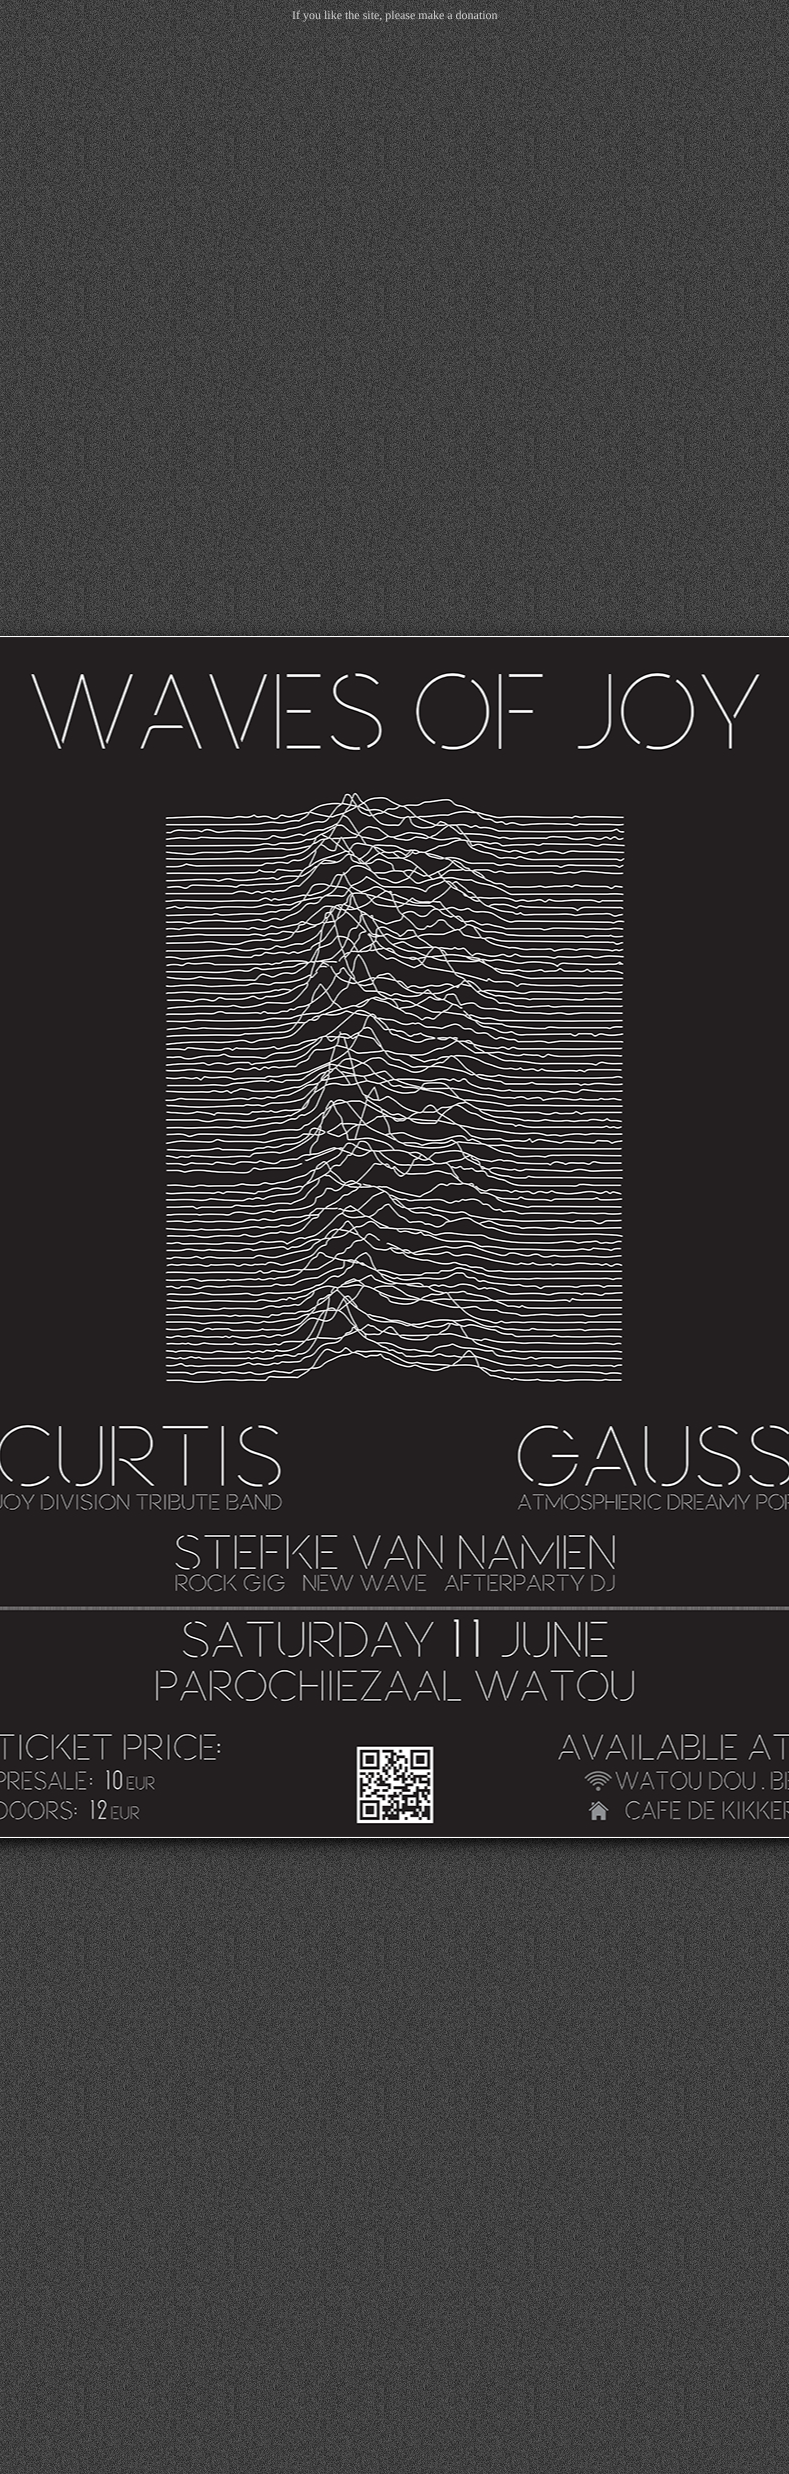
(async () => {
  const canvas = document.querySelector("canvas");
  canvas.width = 789;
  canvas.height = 2474;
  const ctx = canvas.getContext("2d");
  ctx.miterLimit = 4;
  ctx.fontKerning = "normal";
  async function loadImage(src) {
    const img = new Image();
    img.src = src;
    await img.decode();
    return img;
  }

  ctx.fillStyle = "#ffffff";
  ctx.fillRect(0, 0, 789, 2474);
  ctx.drawImage(await loadImage("img/1.png"), 0, 0, 789, 2474);
  ctx.fillStyle = "rgba(0, 0, 0, 0.6)";
  ctx.filter = "blur(10px)";
  ctx.beginPath();
  ctx.rect(-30, 642, 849, 1202);
  ctx.fill();
  ctx.filter = "none";
  ctx.filter = "blur(4px)";
  ctx.beginPath();
  ctx.rect(-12, 640, 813, 1202);
  ctx.fill();
  ctx.filter = "none";
  ctx.strokeStyle = "#ffffff";
  ctx.strokeRect(-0.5, 636.5, 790, 1201);
  ctx.drawImage(await loadImage("img/2.png"), 0, 637, 789, 1200);
  ctx.font = "12px Liberation Serif";
  ctx.fillStyle = "#cccccc";
  ctx.fillText("If you like the site, please make a donation", 292, 19);
})();
